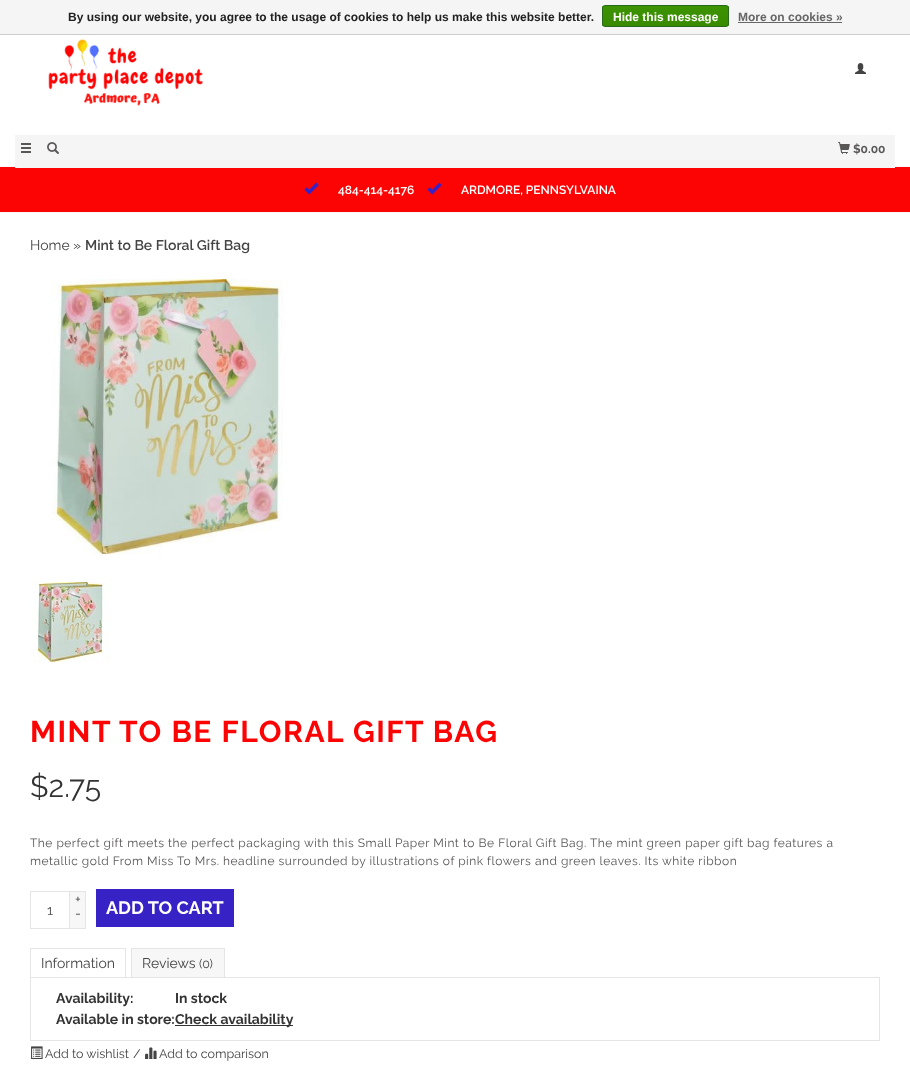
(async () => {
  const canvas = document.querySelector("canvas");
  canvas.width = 910;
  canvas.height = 1066;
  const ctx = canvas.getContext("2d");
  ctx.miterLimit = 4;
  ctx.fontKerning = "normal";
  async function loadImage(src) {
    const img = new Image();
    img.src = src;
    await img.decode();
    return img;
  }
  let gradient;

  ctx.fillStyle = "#fc0403";
  ctx.fillRect(0, 0, 910, 1066);
  for (const [x, y, w, h, color] of [
    [0, 213, 910, 853, "#ffffff"],
    [0, 0, 910, 34, "#f5f5f5"],
    [0, 34, 910, 1, "#cccccc"],
  ]) {
    ctx.fillStyle = color;
    ctx.fillRect(x, y, w, h);
  }
  ctx.save();
  ctx.beginPath();
  ctx.roundRect(602, 5, 127, 22, 3);
  ctx.clip();
  gradient = ctx.createLinearGradient(666, 6, 666, 26);
  gradient.addColorStop(0, "#3c9300");
  gradient.addColorStop(1, "#398a00");
  ctx.fillStyle = gradient;
  ctx.fillRect(602, 6, 127, 20);
  ctx.restore();
  ctx.beginPath();
  ctx.roundRect(602.5, 5.5, 126, 21, 2.5);
  ctx.strokeStyle = "#29691d";
  ctx.stroke();
  ctx.fillStyle = "#666666";
  ctx.fillRect(738, 22, 104, 1);
  ctx.drawImage(await loadImage("img/1.png"), 52, 279, 231, 275);
  ctx.drawImage(await loadImage("img/2.png"), 30, 582, 80, 80);
  ctx.strokeStyle = "#e5e5e5";
  ctx.strokeRect(30.5, 891.5, 39, 37);
  for (const [x, y, w, h, color] of [
    [70, 892, 15, 36, "#f7f7f7"],
    [70, 891, 16, 1, "#e5e5e5"],
    [85, 891, 1, 38, "#e5e5e5"],
    [70, 928, 16, 1, "#e5e5e5"],
    [96, 889, 138, 38, "#3722c6"],
    [30, 948, 96, 1, "#e5e5e5"],
    [125, 948, 1, 30, "#e5e5e5"],
    [30, 948, 1, 30, "#e5e5e5"],
    [132, 949, 92, 28, "#f7f7f7"],
    [131, 948, 94, 1, "#e5e5e5"],
    [224, 948, 1, 30, "#e5e5e5"],
    [131, 948, 1, 30, "#e5e5e5"],
  ]) {
    ctx.fillStyle = color;
    ctx.fillRect(x, y, w, h);
  }
  ctx.strokeRect(30.5, 977.5, 849, 63);
  ctx.fillStyle = "#333333";
  ctx.fillRect(175, 1025, 118, 1);
  ctx.drawImage(await loadImage("img/3.png"), 31, 1046, 12, 13);
  ctx.drawImage(await loadImage("img/4.png"), 145, 1047, 12, 12);
  ctx.fillStyle = "#ffffff";
  ctx.fillRect(0, 35, 910, 131);
  ctx.fillStyle = "#f7f7f7";
  ctx.fillRect(0, 166, 910, 1);
  ctx.drawImage(await loadImage("img/5.png"), 48, 39, 155, 67);
  ctx.drawImage(await loadImage("img/6.png"), 855, 63, 11, 11);
  ctx.fillStyle = "#f5f5f5";
  ctx.fillRect(15, 135, 880, 33);
  ctx.drawImage(await loadImage("img/7.png"), 21, 143, 10, 10);
  ctx.drawImage(await loadImage("img/8.png"), 47, 142, 12, 12);
  ctx.drawImage(await loadImage("img/9.png"), 838, 142, 12, 12);
  ctx.fillStyle = "#f7f7f7";
  ctx.fillRect(0, 212, 910, 1);
  ctx.drawImage(await loadImage("img/10.png"), 304, 182, 15, 13);
  ctx.drawImage(await loadImage("img/10.png"), 427, 182, 15, 13);
  ctx.font = "bold 12px Liberation Sans";
  ctx.fillStyle = "#222222";
  ctx.fillText("By using our website, you agree to the usage of cookies to help us make this website better.", 68, 21);
  ctx.fillStyle = "#ffffff";
  ctx.fillText("Hide this message", 613, 21);
  ctx.fillStyle = "#666666";
  ctx.fillText("More on cookies »", 738, 21);
  ctx.font = "14px Raleway";
  ctx.fillStyle = "#444444";
  ctx.fillText("Home", 30, 250);
  ctx.fillStyle = "#333333";
  ctx.fillText("»", 73, 250);
  ctx.font = "600 14px Raleway";
  ctx.fillStyle = "#444444";
  ctx.fillText("Mint to Be Floral Gift Bag", 85, 250);
  ctx.letterSpacing = "1.5px";
  ctx.font = "bold 30px Raleway";
  ctx.fillStyle = "#fc0403";
  ctx.fillText("MINT TO BE FLORAL GIFT BAG", 30, 742);
  ctx.letterSpacing = "0px";
  ctx.font = "30px Raleway";
  ctx.fillStyle = "#333333";
  ctx.fillText("$2.75", 30, 797);
  ctx.letterSpacing = "0.5px";
  ctx.font = "12px Raleway";
  ctx.fillStyle = "#595656";
  ctx.fillText("The perfect gift meets the perfect packaging with this Small Paper Mint to Be Floral Gift Bag. The mint green paper gift bag features a", 30, 847);
  ctx.fillText("metallic gold From Miss To Mrs. headline surrounded by illustrations of pink flowers and green leaves. Its white ribbon", 30, 865);
  ctx.letterSpacing = "0px";
  ctx.font = "14px Raleway";
  ctx.fillStyle = "#515050";
  ctx.fillText("1", 47, 915);
  ctx.fillStyle = "#444444";
  ctx.fillText("+", 75, 904);
  ctx.fillText("-", 75, 918);
  ctx.font = "bold 18px Raleway";
  ctx.fillStyle = "#ffffff";
  ctx.fillText("ADD TO CART", 106, 914);
  ctx.font = "14px Raleway";
  ctx.fillStyle = "#444444";
  ctx.fillText("Information", 41, 968);
  ctx.fillText("Reviews", 142, 968);
  ctx.font = "12.5px Raleway";
  ctx.fillText("(0)", 199, 968);
  ctx.font = "bold 14px Raleway";
  ctx.fillStyle = "#333333";
  for (const [text, x, y] of [
    ["Availability:", 56, 1003],
    ["In stock", 175, 1003],
    ["Available in store:", 56, 1024],
    ["Check availability", 175, 1024],
  ]) {
    ctx.fillText(text, x, y);
  }
  ctx.font = "12.5px Raleway";
  ctx.fillStyle = "#444444";
  ctx.fillText("Add to wishlist", 45, 1058);
  ctx.fillStyle = "#333333";
  ctx.fillText("/", 133, 1058);
  ctx.fillStyle = "#444444";
  ctx.fillText("Add to comparison", 159, 1058);
  ctx.font = "bold 12px Raleway";
  ctx.fillStyle = "#595656";
  ctx.fillText("$0.00", 853, 153);
  ctx.font = "600 12px Raleway";
  ctx.fillStyle = "#ffffff";
  ctx.fillText("484-414-4176", 338, 194);
  ctx.fillText("ARDMORE, PENNSYLVAINA", 461, 194);
})();
